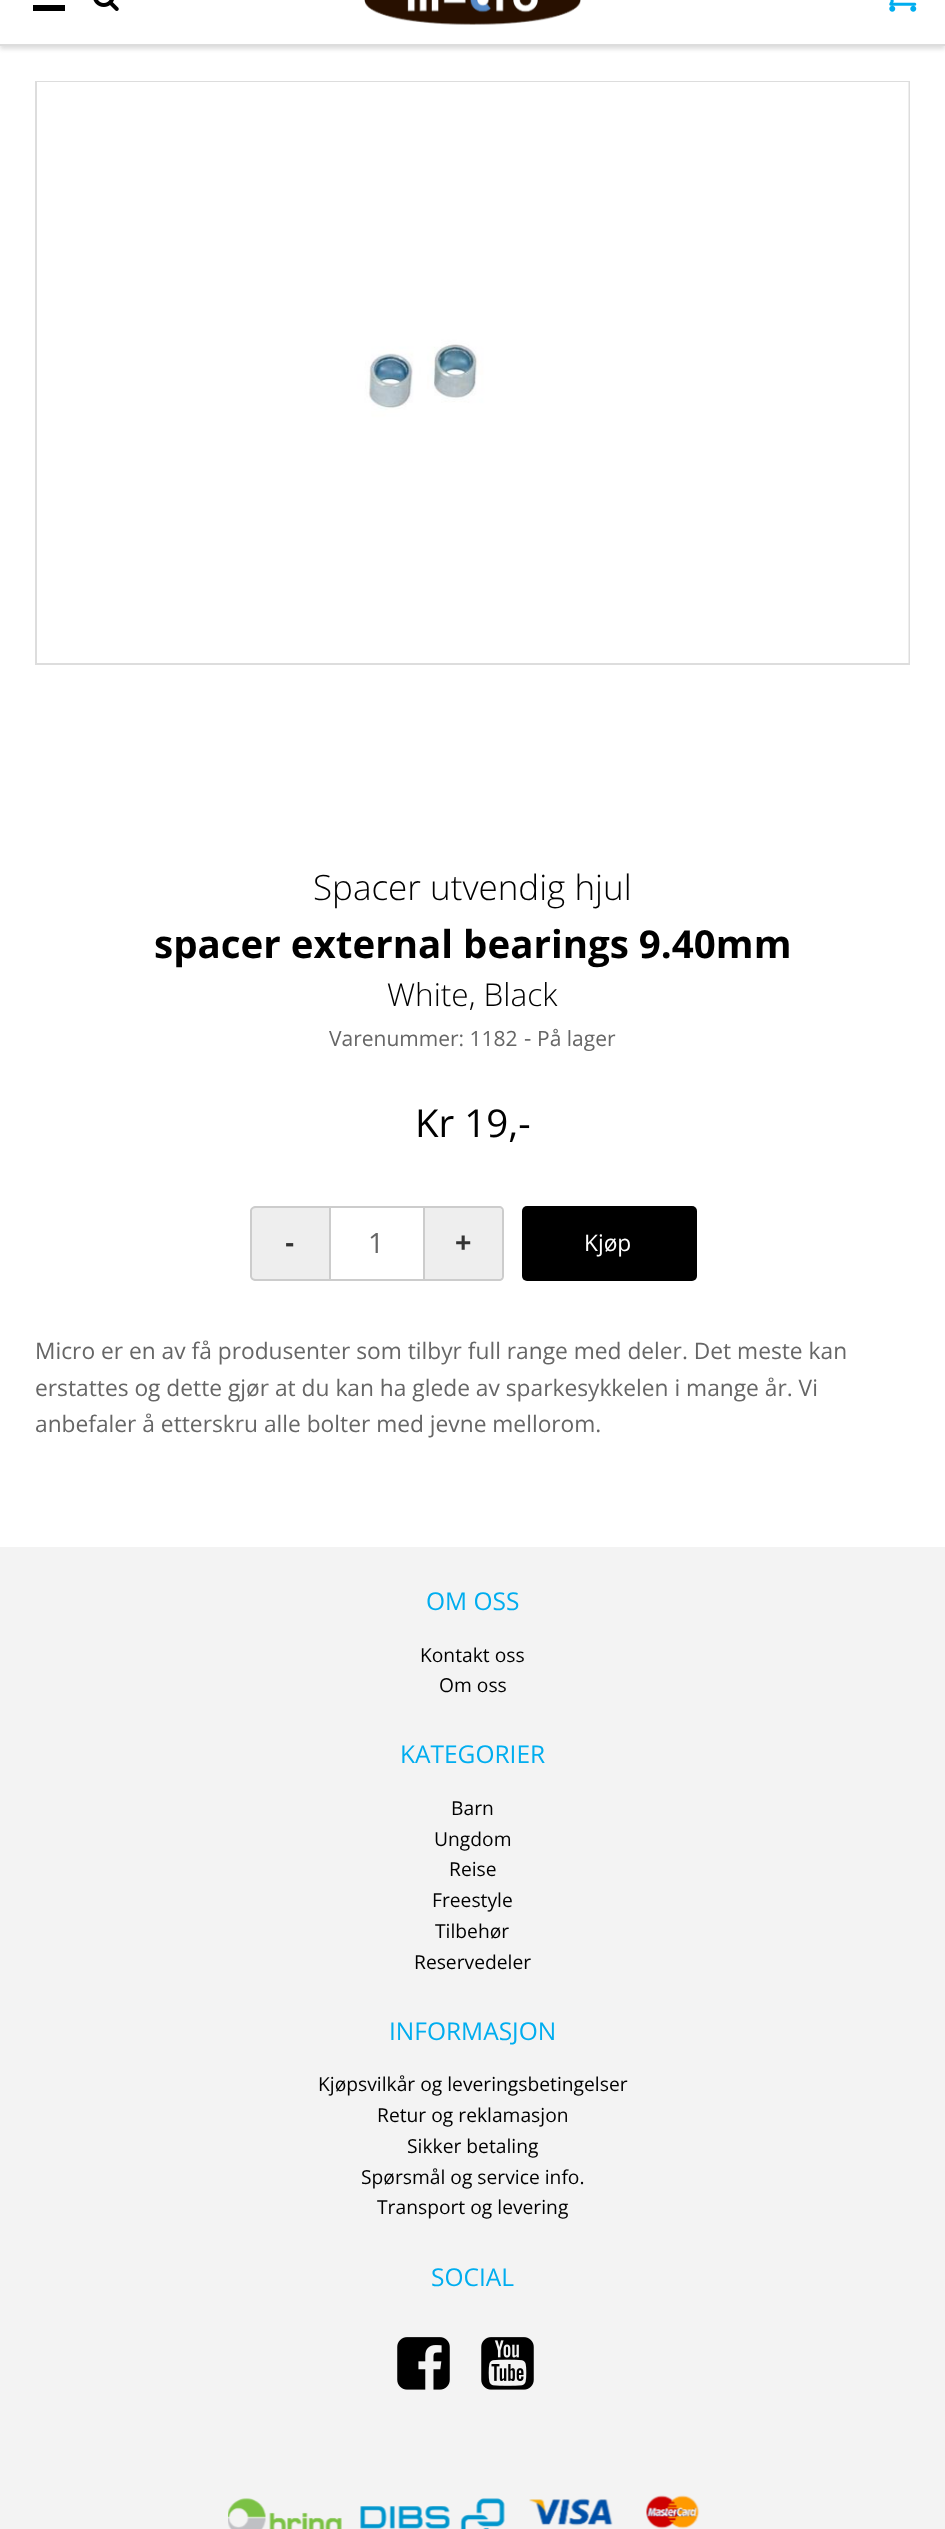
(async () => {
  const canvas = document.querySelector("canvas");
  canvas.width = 945;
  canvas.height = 2529;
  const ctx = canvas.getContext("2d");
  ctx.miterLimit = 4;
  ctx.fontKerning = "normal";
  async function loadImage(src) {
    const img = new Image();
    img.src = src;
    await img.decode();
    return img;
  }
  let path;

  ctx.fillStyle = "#ffffff";
  ctx.fillRect(0, 0, 945, 2529);
  ctx.fillStyle = "#dddddd";
  ctx.filter = "blur(2px)";
  ctx.beginPath();
  ctx.rect(0, -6, 945, 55);
  ctx.fill();
  ctx.filter = "none";
  for (const [x, y, w, h, color] of [
    [0, 0, 945, 44, "#ffffff"],
    [0, 44, 945, 2, "#dddddd"],
    [33, 5, 32, 6, "#000000"],
  ]) {
    ctx.fillStyle = color;
    ctx.fillRect(x, y, w, h);
  }
  ctx.drawImage(await loadImage("img/1.png"), 93, 0, 26, 11);
  ctx.drawImage(await loadImage("img/2.png"), 364, 0, 217, 25);
  ctx.drawImage(await loadImage("img/3.png"), 889, 0, 28, 12);
  ctx.strokeStyle = "#dddddd";
  ctx.lineWidth = 2;
  ctx.strokeRect(36, 82, 873, 582);
  ctx.drawImage(await loadImage("img/4.png"), 37, 82, 872, 581);
  ctx.fillStyle = "#eeeeee";
  ctx.beginPath();
  ctx.roundRect(252, 1208, 77, 71, [4, 0, 0, 4]);
  ctx.fill();
  ctx.fillStyle = "#cccccc";
  path = new Path2D("M256 1206H329V1281H256C253 1281 250 1279 250 1276V1211C250 1208 253 1206 256 1206ZM256 1208H329V1279H256C254 1279 252 1278 252 1276V1211C252 1209 254 1208 256 1208Z");
  ctx.fill(path, "evenodd");
  ctx.strokeStyle = "#cccccc";
  ctx.strokeRect(330, 1207, 94, 73);
  ctx.fillStyle = "#eeeeee";
  ctx.beginPath();
  ctx.roundRect(425, 1208, 77, 71, [0, 4, 4, 0]);
  ctx.fill();
  ctx.fillStyle = "#cccccc";
  path = new Path2D("M425 1206H499C502 1206 504 1208 504 1211V1276C504 1279 502 1281 499 1281H425ZM425 1208H499C501 1208 502 1209 502 1211V1276C502 1278 501 1279 499 1279H425Z");
  ctx.fill(path, "evenodd");
  ctx.fillStyle = "#000000";
  ctx.beginPath();
  ctx.roundRect(522, 1206, 175, 75, 5);
  ctx.fill();
  ctx.fillStyle = "#f3f3f3";
  ctx.fillRect(0, 1547, 945, 982);
  ctx.drawImage(await loadImage("img/5.png"), 397, 2337, 53, 53);
  ctx.drawImage(await loadImage("img/6.png"), 481, 2337, 53, 53);
  ctx.drawImage(await loadImage("img/7.png"), 228, 2498, 114, 31);
  ctx.drawImage(await loadImage("img/8.png"), 360, 2498, 145, 31);
  ctx.drawImage(await loadImage("img/9.png"), 529, 2498, 84, 28);
  ctx.drawImage(await loadImage("img/10.png"), 646, 2495, 54, 34);
  ctx.font = "300 35px Open Sans";
  ctx.fillStyle = "#000000";
  ctx.fillText("Spacer utvendig hjul", 313, 900);
  ctx.font = "bold 38.5px Open Sans";
  ctx.fillText("spacer external bearings 9.40mm", 154, 958);
  ctx.font = "300 31.5px Open Sans";
  ctx.fillText("White, Black", 387, 1006);
  ctx.font = "21px Open Sans";
  ctx.fillStyle = "#666666";
  ctx.fillText("Varenummer: 1182", 329, 1046);
  ctx.font = "22.75px Open Sans";
  ctx.fillText("-", 524, 1046);
  ctx.font = "21px Open Sans";
  ctx.fillText("På lager", 537, 1046);
  ctx.font = "38.5px Open Sans";
  ctx.fillStyle = "#000000";
  ctx.fillText("Kr 19,-", 415, 1137);
  ctx.font = "bold 28px Liberation Sans";
  ctx.fillStyle = "#333333";
  ctx.fillText("-", 285, 1252);
  ctx.font = "28px Open Sans";
  ctx.fillStyle = "#666666";
  ctx.fillText("1", 368, 1253);
  ctx.font = "bold 28px Liberation Sans";
  ctx.fillStyle = "#333333";
  ctx.fillText("+", 455, 1252);
  ctx.font = "22.75px Open Sans";
  ctx.fillStyle = "#ffffff";
  ctx.fillText("Kjøp", 584, 1251);
  ctx.fillStyle = "#666666";
  for (const [text, x, y] of [
    ["Micro er en av få produsenter som tilbyr full range med deler. Det meste kan", 35, 1359],
    ["erstattes og dette gjør at du kan ha glede av sparkesykkelen i mange år. Vi", 35, 1396],
    ["anbefaler å etterskru alle bolter med jevne mellorom.", 35, 1432],
  ]) {
    ctx.fillText(text, x, y);
  }
  ctx.font = "24.5px Open Sans";
  ctx.fillStyle = "#00adef";
  ctx.fillText("OM OSS", 426, 1610);
  ctx.font = "19.25px Open Sans";
  ctx.fillStyle = "#000000";
  ctx.fillText("Kontakt oss", 420, 1662);
  ctx.fillText("Om oss", 439, 1692);
  ctx.font = "24.5px Open Sans";
  ctx.fillStyle = "#00adef";
  ctx.fillText("KATEGORIER", 400, 1763);
  ctx.font = "19.25px Open Sans";
  ctx.fillStyle = "#000000";
  for (const [text, x, y] of [
    ["Barn", 451, 1815],
    ["Ungdom", 434, 1846],
    ["Reise", 449, 1876],
    ["Freestyle", 432, 1907],
    ["Tilbehør", 435, 1938],
    ["Reservedeler", 414, 1969],
  ]) {
    ctx.fillText(text, x, y);
  }
  ctx.font = "24.5px Open Sans";
  ctx.fillStyle = "#00adef";
  ctx.fillText("INFORMASJON", 389, 2040);
  ctx.font = "19.25px Open Sans";
  ctx.fillStyle = "#000000";
  for (const [text, x, y] of [
    ["Kjøpsvilkår og leveringsbetingelser", 318, 2091],
    ["Retur og reklamasjon", 377, 2122],
    ["Sikker betaling", 407, 2153],
    ["Spørsmål og service info.", 361, 2184],
    ["Transport og levering", 377, 2214],
  ]) {
    ctx.fillText(text, x, y);
  }
  ctx.font = "24.5px Open Sans";
  ctx.fillStyle = "#00adef";
  ctx.fillText("SOCIAL", 431, 2286);
})();
